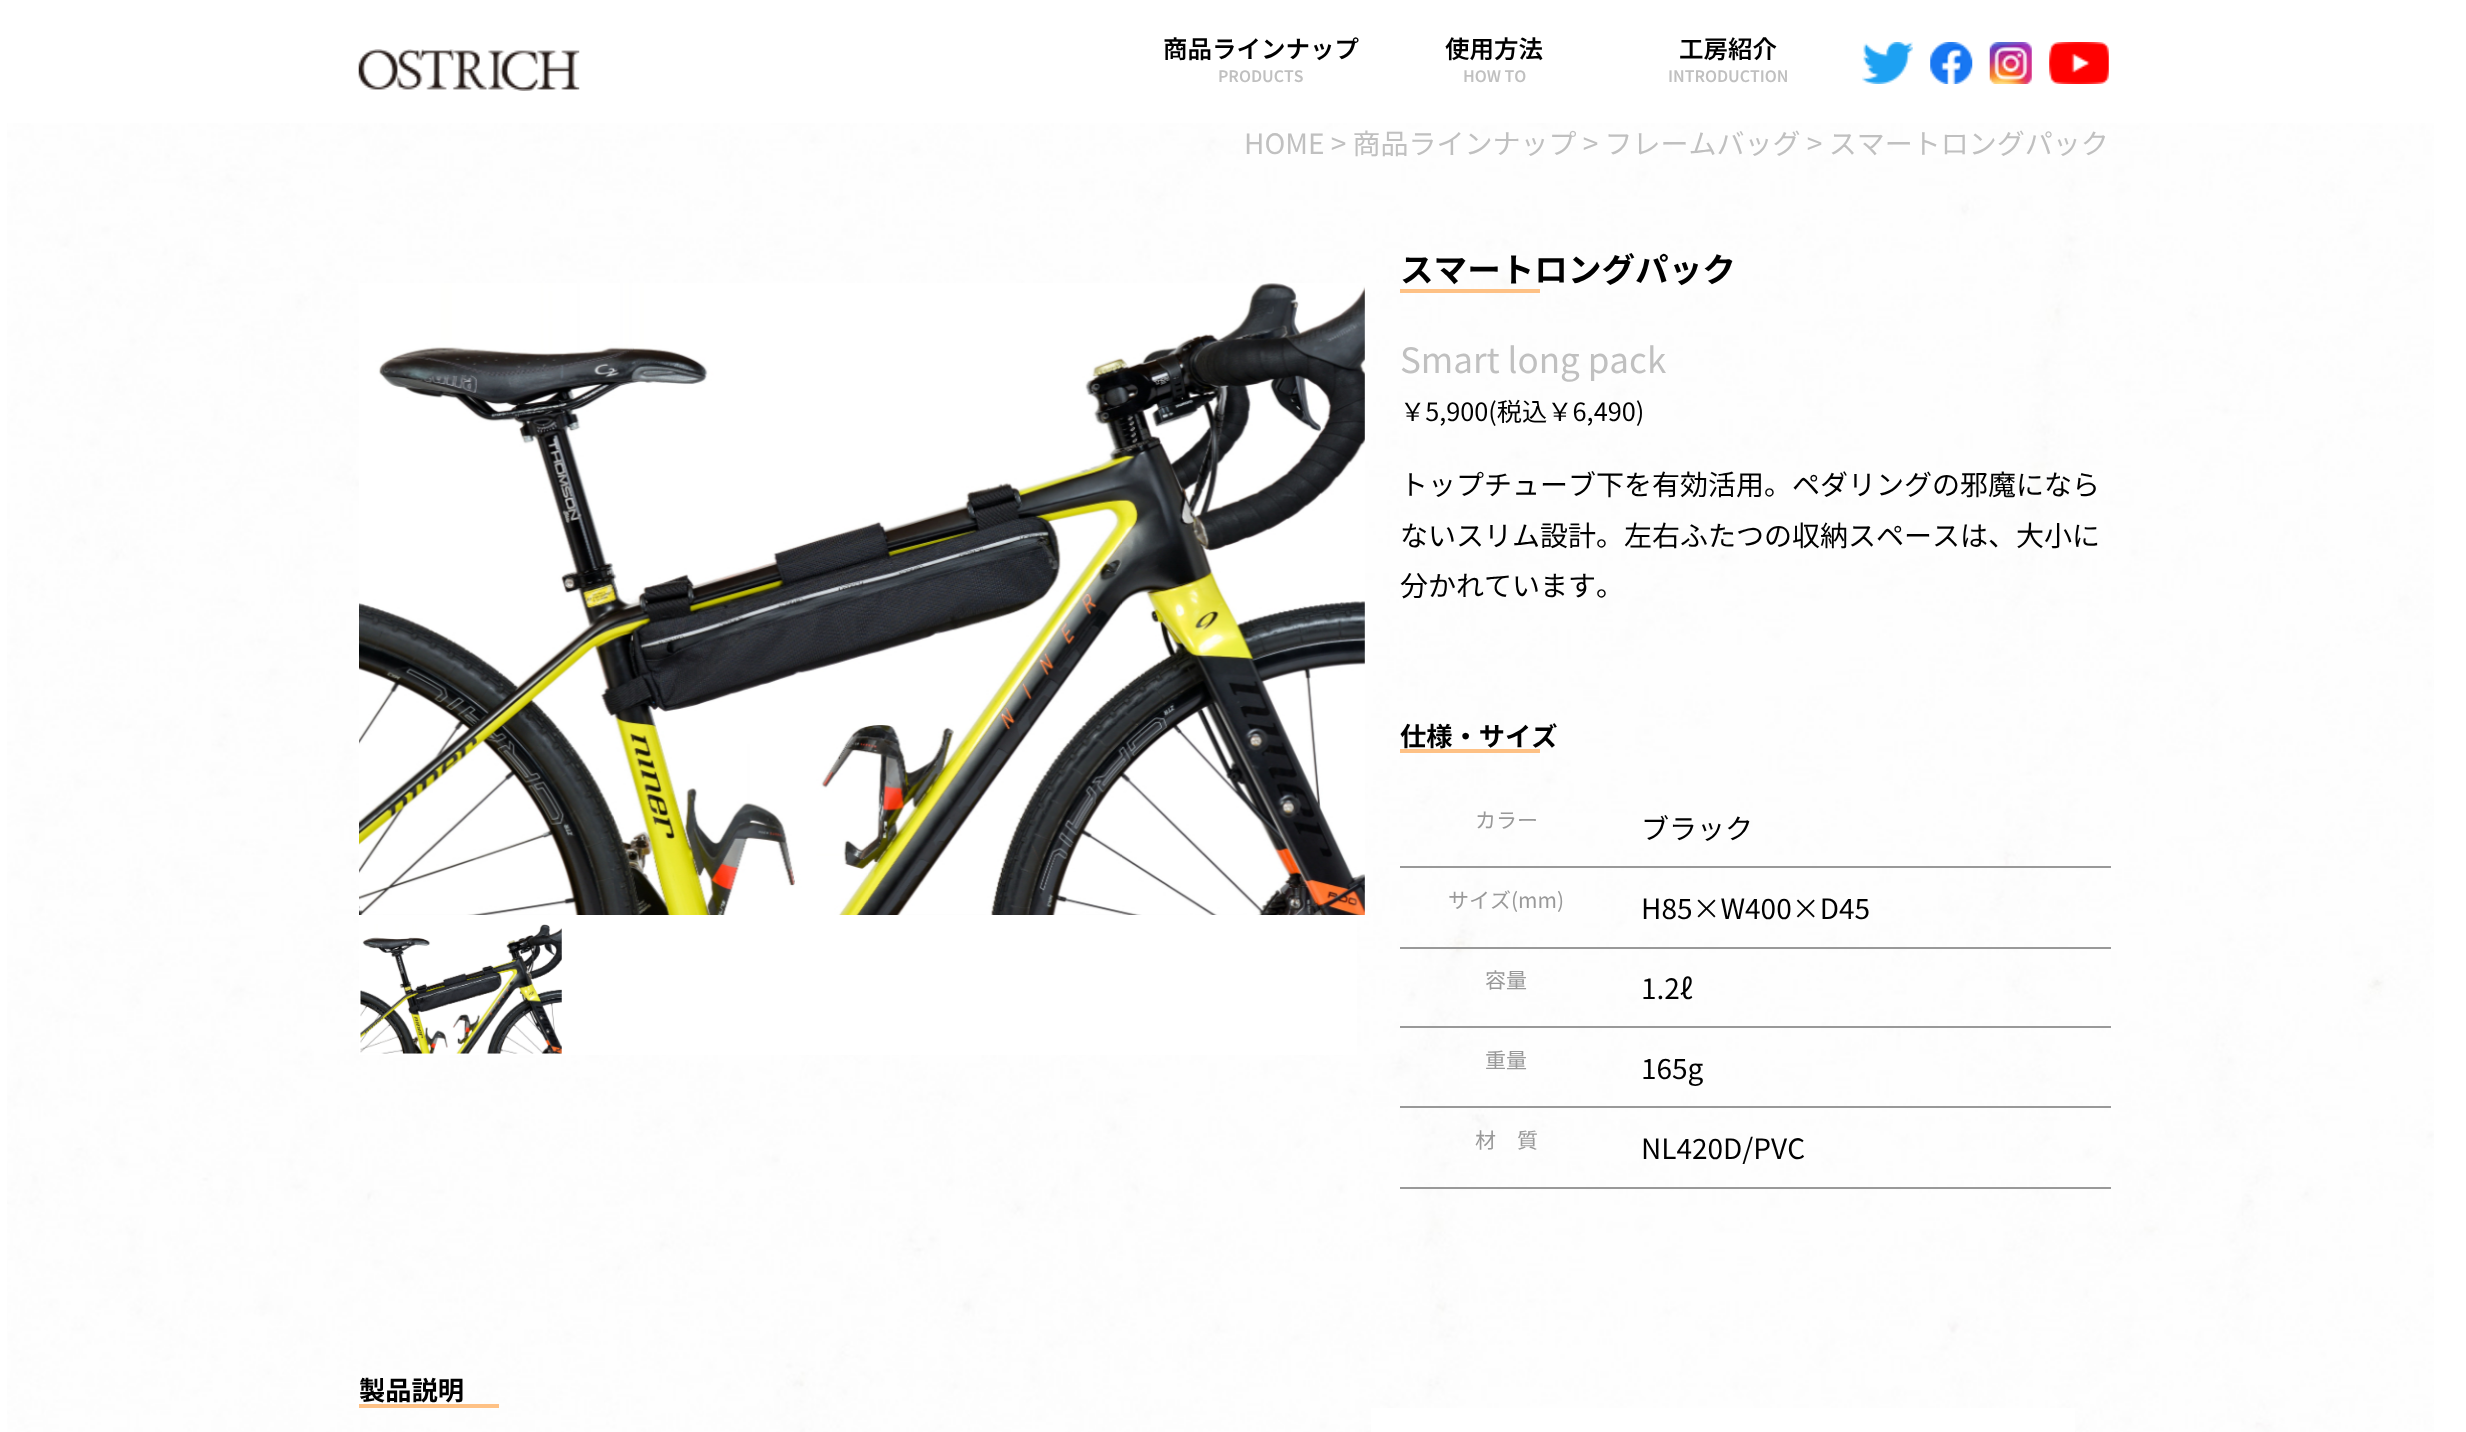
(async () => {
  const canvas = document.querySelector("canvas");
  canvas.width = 2466;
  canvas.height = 1432;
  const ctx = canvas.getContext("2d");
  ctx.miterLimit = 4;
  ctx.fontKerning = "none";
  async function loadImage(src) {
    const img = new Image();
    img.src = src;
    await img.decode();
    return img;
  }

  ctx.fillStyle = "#ffffff";
  ctx.fillRect(0, 0, 2466, 1432);
  ctx.drawImage(await loadImage("img/1.png"), 7, 123, 2427, 1309);
  ctx.drawImage(await loadImage("img/2.png"), 358, 49, 222, 42);
  ctx.drawImage(await loadImage("img/3.png"), 1862, 42, 51, 42);
  ctx.drawImage(await loadImage("img/4.png"), 1930, 42, 43, 42);
  ctx.drawImage(await loadImage("img/5.png"), 1989, 42, 43, 42);
  ctx.drawImage(await loadImage("img/6.png"), 2049, 42, 60, 42);
  ctx.drawImage(await loadImage("img/7.png"), 359, 283, 1006, 632);
  ctx.fillRect(359, 915, 998, 140);
  ctx.drawImage(await loadImage("img/8.png"), 360, 924, 202, 130);
  for (const [x, y, w, h, color] of [
    [1400, 289, 140, 4, "#fec185"],
    [1400, 749, 140, 4, "#fec185"],
    [1400, 866, 711, 2, "#999999"],
    [1400, 947, 711, 2, "#999999"],
    [1400, 1026, 711, 2, "#999999"],
    [1400, 1106, 711, 2, "#999999"],
    [1400, 1187, 711, 2, "#999999"],
    [359, 1404, 140, 4, "#fec185"],
    [1371, 1408, 704, 24, "#ffffff"],
  ]) {
    ctx.fillStyle = color;
    ctx.fillRect(x, y, w, h);
  }
  ctx.font = "600 24.5px Noto Sans JP";
  ctx.fillStyle = "#000000";
  ctx.fillText("商品ラインナップ", 1163, 58);
  ctx.font = "600 15.75px Noto Sans JP";
  ctx.fillStyle = "#c0c0c0";
  ctx.fillText("PRODUCTS", 1218, 82);
  ctx.font = "600 24.5px Noto Sans JP";
  ctx.fillStyle = "#000000";
  ctx.fillText("使用方法", 1445, 58);
  ctx.font = "600 15.75px Noto Sans JP";
  ctx.fillStyle = "#c0c0c0";
  ctx.fillText("HOW TO", 1463, 82);
  ctx.font = "600 24.5px Noto Sans JP";
  ctx.fillStyle = "#000000";
  ctx.fillText("工房紹介", 1679, 58);
  ctx.font = "600 15.75px Noto Sans JP";
  ctx.fillStyle = "#c0c0c0";
  ctx.fillText("INTRODUCTION", 1668, 82);
  ctx.font = "28px Noto Sans JP";
  ctx.fillText("HOME > 商品ラインナップ > フレームバッグ > スマートロングパック", 1244, 154);
  ctx.font = "bold 33.6px Noto Sans JP";
  ctx.fillStyle = "#000000";
  ctx.fillText("スマートロングパック", 1400, 282);
  ctx.font = "35px Noto Sans JP";
  ctx.fillStyle = "#c0c0c0";
  ctx.fillText("Smart long pack", 1400, 373);
  ctx.font = "25.25px Noto Sans JP";
  ctx.fillStyle = "#000000";
  ctx.fillText("￥5,900(税込￥6,490)", 1400, 421);
  ctx.font = "28px Noto Sans JP";
  for (const [text, x, y] of [
    ["トップチューブ下を有効活用。ペダリングの邪魔になら", 1400, 495],
    ["ないスリム設計。左右ふたつの収納スペースは、大小に", 1400, 546],
    ["分かれています。", 1400, 596],
  ]) {
    ctx.fillText(text, x, y);
  }
  ctx.font = "bold 26.25px Noto Sans JP";
  ctx.fillText("仕様・サイズ", 1400, 746);
  ctx.font = "21px Noto Sans JP";
  ctx.fillStyle = "#999999";
  ctx.fillText("カラー", 1475, 828);
  ctx.font = "28px Noto Sans JP";
  ctx.fillStyle = "#000000";
  ctx.fillText("ブラック", 1641, 839);
  ctx.font = "21px Noto Sans JP";
  ctx.fillStyle = "#999999";
  ctx.fillText("サイズ(mm)", 1448, 908);
  ctx.font = "28px Noto Sans JP";
  ctx.fillStyle = "#000000";
  ctx.fillText("H85×W400×D45", 1641, 919);
  ctx.font = "21px Noto Sans JP";
  ctx.fillStyle = "#999999";
  ctx.fillText("容量", 1485, 988);
  ctx.font = "28px Noto Sans JP";
  ctx.fillStyle = "#000000";
  ctx.fillText("1.2ℓ", 1641, 999);
  ctx.font = "21px Noto Sans JP";
  ctx.fillStyle = "#999999";
  ctx.fillText("重量", 1485, 1068);
  ctx.font = "28px Noto Sans JP";
  ctx.fillStyle = "#000000";
  ctx.fillText("165g", 1641, 1079);
  ctx.font = "21px Noto Sans JP";
  ctx.fillStyle = "#999999";
  ctx.fillText("材　質", 1475, 1148);
  ctx.font = "28px Noto Sans JP";
  ctx.fillStyle = "#000000";
  ctx.fillText("NL420D/PVC", 1641, 1159);
  ctx.font = "bold 26.25px Noto Sans JP";
  ctx.fillText("製品説明", 359, 1400);
})();
